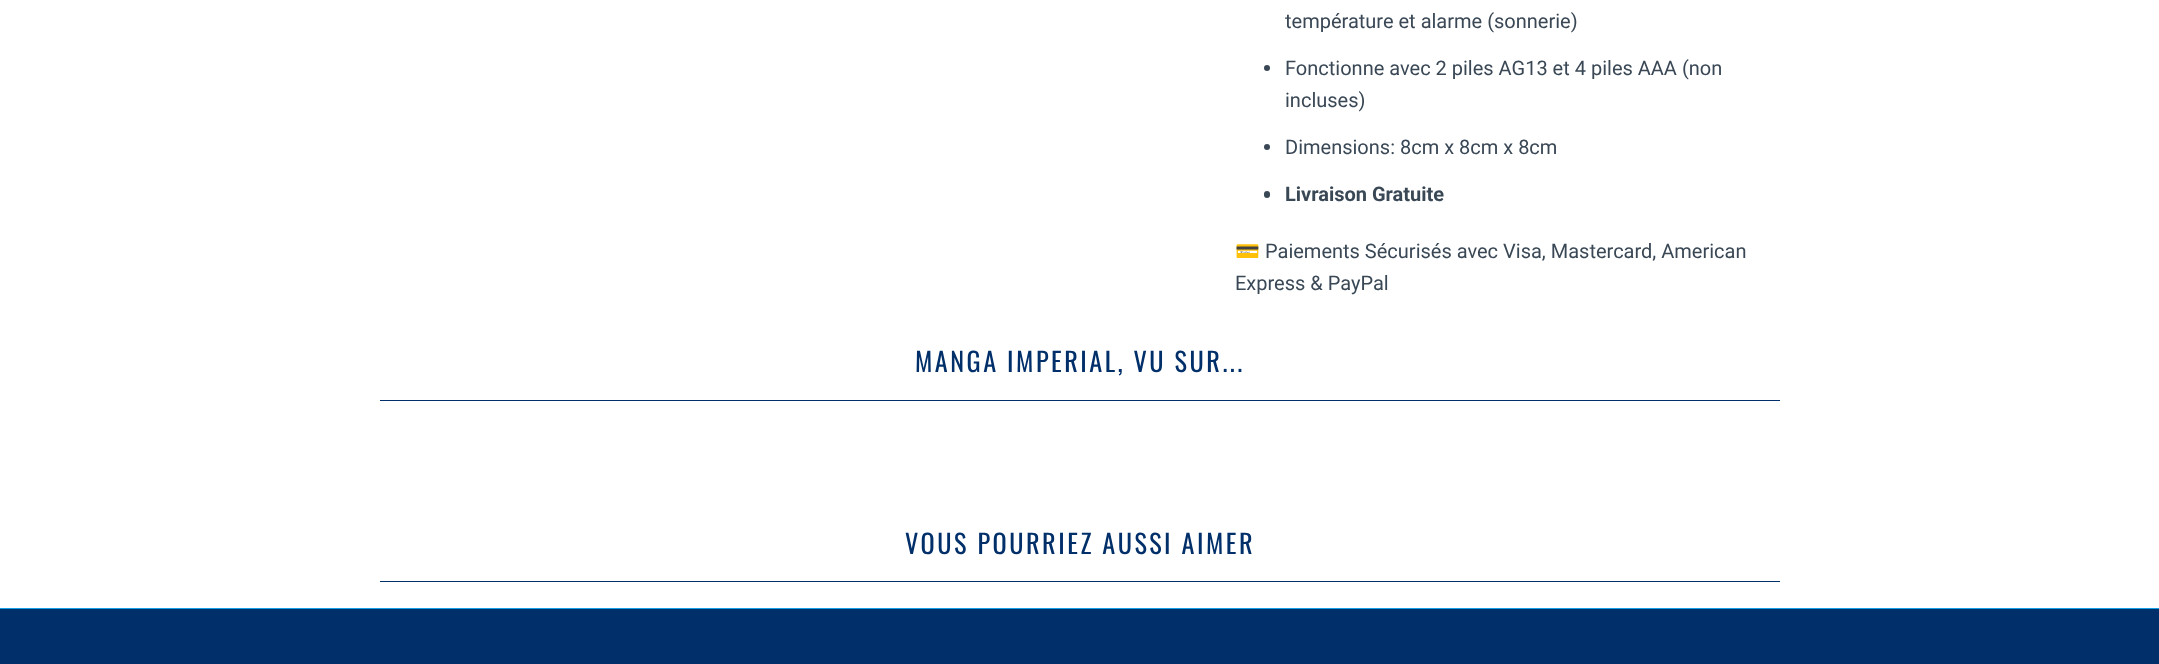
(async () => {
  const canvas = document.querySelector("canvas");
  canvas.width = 2159;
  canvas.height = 664;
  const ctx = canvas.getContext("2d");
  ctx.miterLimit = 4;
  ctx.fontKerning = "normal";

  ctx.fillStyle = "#ffffff";
  ctx.fillRect(0, 0, 2159, 664);
  ctx.fillStyle = "#3a4856";
  ctx.beginPath();
  ctx.arc(1267, 68, 3, 0, Math.PI * 2);
  ctx.fill();
  ctx.beginPath();
  ctx.arc(1267, 147, 3, 0, Math.PI * 2);
  ctx.fill();
  ctx.beginPath();
  ctx.roundRect(1264, 191, 6, 7, 3);
  ctx.fill();
  for (const [x, y, w, h, color] of [
    [380, 400, 1400, 1, "#002f69"],
    [380, 581, 1400, 1, "#002f69"],
    [0, 609, 2159, 55, "#002f69"],
    [0, 608, 2159, 1, "#139fe7"],
  ]) {
    ctx.fillStyle = color;
    ctx.fillRect(x, y, w, h);
  }
  ctx.font = "20px Roboto";
  ctx.fillStyle = "#3a4856";
  for (const [text, x, y] of [
    ["température et alarme (sonnerie)", 1285, 28],
    ["Fonctionne avec 2 piles AG13 et 4 piles AAA (non", 1285, 75],
    ["incluses)", 1285, 107],
    ["Dimensions: 8cm x 8cm x 8cm", 1285, 154],
  ]) {
    ctx.fillText(text, x, y);
  }
  ctx.font = "bold 20px Roboto";
  ctx.fillText("Livraison Gratuite", 1285, 201);
  ctx.font = "20px Noto Color Emoji";
  ctx.fillText("💳", 1235, 258);
  ctx.font = "20px Roboto";
  ctx.fillText("Paiements Sécurisés avec Visa, Mastercard, American", 1265, 258);
  ctx.fillText("Express & PayPal", 1235, 290);
  ctx.letterSpacing = "2.5px";
  ctx.font = "26.25px Oswald";
  ctx.fillStyle = "#002f69";
  ctx.fillText("MANGA IMPERIAL, VU SUR...", 915, 372);
  ctx.fillText("VOUS POURRIEZ AUSSI AIMER", 905, 554);
})();
